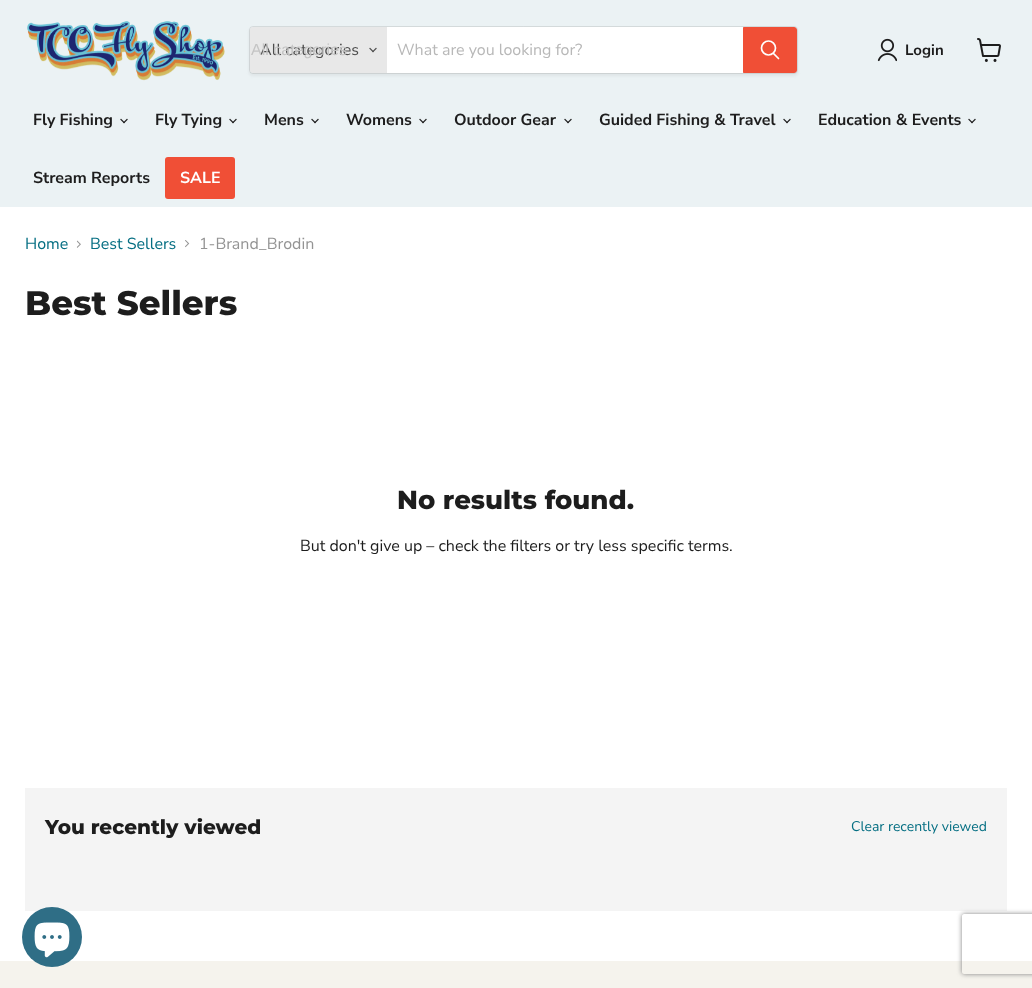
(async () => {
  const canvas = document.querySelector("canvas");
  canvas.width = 1032;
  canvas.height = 988;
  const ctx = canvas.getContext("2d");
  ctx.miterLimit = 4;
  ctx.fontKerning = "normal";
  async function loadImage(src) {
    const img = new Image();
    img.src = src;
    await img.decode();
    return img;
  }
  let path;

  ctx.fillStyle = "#ffffff";
  ctx.fillRect(0, 0, 1032, 988);
  ctx.fillStyle = "#ebf2f4";
  ctx.fillRect(0, 0, 1032, 207);
  ctx.drawImage(await loadImage("img/1.png"), 27, 21, 198, 60);
  ctx.fillStyle = "rgba(128, 128, 128, 0.11)";
  ctx.filter = "blur(1.5px)";
  ctx.beginPath();
  ctx.roundRect(249, 28, 549, 48, 4);
  ctx.fill();
  ctx.filter = "none";
  ctx.beginPath();
  ctx.roundRect(249.5, 26.5, 548, 47, 3.5);
  ctx.strokeStyle = "rgba(128, 128, 128, 0.2)";
  ctx.stroke();
  ctx.fillStyle = "#e8e8e8";
  ctx.beginPath();
  ctx.roundRect(250, 27, 137, 46, [3, 0, 0, 3]);
  ctx.fill();
  ctx.drawImage(await loadImage("img/2.png"), 369, 47, 8, 6);
  ctx.fillStyle = "#ffffff";
  ctx.fillRect(387, 27, 356, 46);
  ctx.fillStyle = "#f04f36";
  ctx.beginPath();
  ctx.roundRect(743.5, 27.5, 53, 45, [0, 2.5, 2.5, 0]);
  ctx.fill();
  ctx.strokeStyle = "#f04f36";
  ctx.stroke();
  path = new Path2D("M778.5 58.5L773.5 53.5");
  ctx.strokeStyle = "#ffffff";
  ctx.lineWidth = 1.7;
  ctx.lineCap = "round";
  ctx.stroke(path);
  ctx.beginPath();
  ctx.arc(768.5, 48, 7, 0, Math.PI * 2);
  ctx.stroke();
  ctx.drawImage(await loadImage("img/3.png"), 877, 38, 20, 24);
  ctx.drawImage(await loadImage("img/4.png"), 977, 38, 24, 24);
  ctx.drawImage(await loadImage("img/5.png"), 120, 118, 8, 6);
  ctx.drawImage(await loadImage("img/5.png"), 229, 118, 8, 6);
  ctx.drawImage(await loadImage("img/5.png"), 311, 118, 8, 6);
  ctx.drawImage(await loadImage("img/5.png"), 419, 118, 8, 6);
  ctx.drawImage(await loadImage("img/5.png"), 564, 118, 8, 6);
  ctx.drawImage(await loadImage("img/5.png"), 783, 118, 8, 6);
  ctx.drawImage(await loadImage("img/5.png"), 968, 118, 8, 6);
  ctx.beginPath();
  ctx.roundRect(165, 157, 70, 42, 3);
  ctx.fill();
  ctx.drawImage(await loadImage("img/6.png"), 76, 240, 5, 8);
  ctx.drawImage(await loadImage("img/7.png"), 185, 240, 5, 8);
  ctx.fillStyle = "#f4f4f4";
  ctx.fillRect(25, 788, 982, 123);
  ctx.fillStyle = "#f5f3ed";
  ctx.fillRect(0, 961, 1032, 27);
  ctx.fillStyle = "#2f6e86";
  ctx.beginPath();
  ctx.arc(52, 937, 30, 0, Math.PI * 2);
  ctx.fill();
  ctx.drawImage(await loadImage("img/8.png"), 34, 922, 36, 36);
  ctx.save();
  path = new Path2D("M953 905H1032V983H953ZM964 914H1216C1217 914 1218 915 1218 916V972C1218 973 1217 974 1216 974H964C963 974 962 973 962 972V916C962 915 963 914 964 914Z");
  ctx.clip(path, "evenodd");
  ctx.fillStyle = "#808080";
  ctx.filter = "blur(2.5px)";
  ctx.beginPath();
  ctx.roundRect(962, 914, 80, 60, 2);
  ctx.fill();
  ctx.filter = "none";
  ctx.restore();
  ctx.font = "16px Nunito Sans";
  ctx.fillStyle = "#4d4d4d";
  ctx.fillText("All categories", 260, 55);
  ctx.font = "16px Liberation Sans";
  ctx.fillStyle = "#c4c4c4";
  ctx.fillText("All categories", 251, 55);
  ctx.font = "16px Nunito Sans";
  ctx.fillStyle = "#b8b8b8";
  ctx.fillText("What are you looking for?", 397, 55);
  ctx.font = "bold 15px Nunito Sans";
  ctx.fillStyle = "#1d1d1d";
  ctx.fillText("Login", 905, 55);
  ctx.font = "bold 16px Nunito Sans";
  for (const [text, x, y] of [
    ["Fly Fishing", 33, 125],
    ["Fly Tying", 155, 125],
    ["Mens", 264, 125],
    ["Womens", 346, 125],
    ["Outdoor Gear", 454, 125],
    ["Guided Fishing & Travel", 599, 125],
    ["Education & Events", 818, 125],
    ["Stream Reports", 33, 183],
  ]) {
    ctx.fillText(text, x, y);
  }
  ctx.fillStyle = "#ffffff";
  ctx.fillText("SALE", 180, 183);
  ctx.font = "16px Nunito Sans";
  ctx.fillStyle = "#046e82";
  ctx.fillText("Home", 25, 249);
  ctx.fillText("Best Sellers", 90, 249);
  ctx.fillStyle = "#949494";
  ctx.fillText("1-Brand_Brodin", 199, 249);
  ctx.font = "800 34px Montserrat";
  ctx.fillStyle = "#1d1d1d";
  ctx.fillText("Best Sellers", 25, 315);
  ctx.font = "800 26px Montserrat";
  ctx.fillText("No results found.", 397, 509);
  ctx.font = "16px Nunito Sans";
  ctx.fillText("But don't give up – check the filters or try less specific terms.", 300, 551);
  ctx.font = "800 20px Montserrat";
  ctx.fillText("You recently viewed", 45, 834);
  ctx.font = "14px Nunito Sans";
  ctx.fillStyle = "#046e82";
  ctx.fillText("Clear recently viewed", 851, 831);
})();
